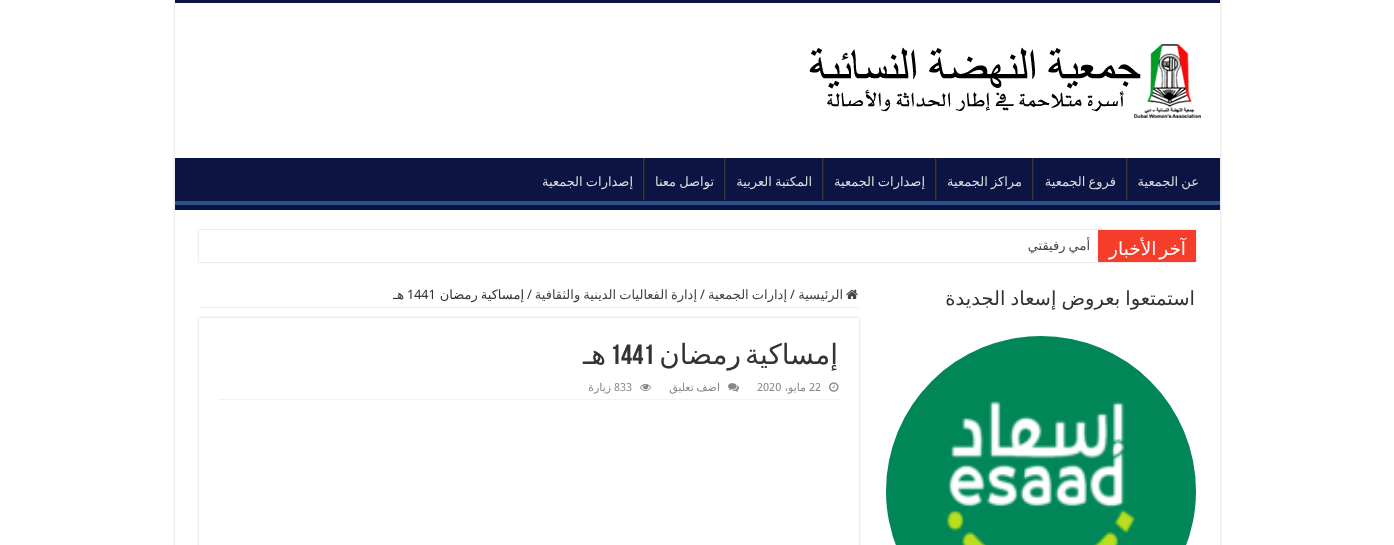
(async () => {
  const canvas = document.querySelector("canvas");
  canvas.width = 1394;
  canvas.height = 545;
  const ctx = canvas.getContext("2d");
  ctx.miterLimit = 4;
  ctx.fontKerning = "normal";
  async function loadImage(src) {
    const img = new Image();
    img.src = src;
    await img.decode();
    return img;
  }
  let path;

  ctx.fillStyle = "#ffffff";
  ctx.fillRect(0, 0, 1394, 545);
  ctx.save();
  path = new Path2D("M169 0H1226V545H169ZM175 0H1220V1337H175Z");
  ctx.clip(path, "evenodd");
  ctx.fillStyle = "#cacaca";
  ctx.filter = "blur(1.5px)";
  ctx.beginPath();
  ctx.rect(175, 0, 1045, 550);
  ctx.fill();
  ctx.filter = "none";
  ctx.restore();
  ctx.fillStyle = "#0c1444";
  ctx.fillRect(175, 0, 1045, 3);
  ctx.drawImage(await loadImage("img/1.png"), 809, 44, 392, 74);
  ctx.fillRect(175, 158, 1045, 52);
  ctx.save();
  ctx.beginPath();
  ctx.rect(175, 158, 1045, 47);
  ctx.clip();
  ctx.fillStyle = "#2f5188";
  path = new Path2D("M76 59H1319V304H76ZM174 152H1220V192C1220 193 1221 201 1219 201H174L173 200V152Z");
  ctx.fill(path, "evenodd");
  ctx.restore();
  for (const [x, y, w, h, color] of [
    [1127, 158, 1, 42, "#222222"],
    [1126, 158, 1, 42, "#383838"],
    [1033, 158, 1, 42, "#222222"],
    [1032, 158, 1, 42, "#383838"],
    [936, 158, 1, 42, "#222222"],
    [935, 158, 1, 42, "#383838"],
    [823, 158, 1, 42, "#222222"],
    [822, 158, 1, 42, "#383838"],
    [725, 158, 1, 42, "#222222"],
    [724, 158, 1, 42, "#383838"],
    [644, 158, 1, 42, "#222222"],
    [643, 158, 1, 42, "#383838"],
  ]) {
    ctx.fillStyle = color;
    ctx.fillRect(x, y, w, h);
  }
  ctx.save();
  path = new Path2D("M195 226H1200V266H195ZM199 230H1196V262H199Z");
  ctx.clip(path, "evenodd");
  ctx.fillStyle = "#cacaca";
  ctx.filter = "blur(1px)";
  ctx.beginPath();
  ctx.rect(199, 230, 997, 32);
  ctx.fill();
  ctx.filter = "none";
  ctx.restore();
  ctx.fillStyle = "#f43d2a";
  ctx.fillRect(1098, 230, 98, 32);
  ctx.drawImage(await loadImage("img/2.png"), 886, 336, 310, 209);
  ctx.fillStyle = "#eeeeee";
  ctx.fillRect(199, 307, 660, 1);
  ctx.drawImage(await loadImage("img/3.png"), 846, 289, 12, 10);
  ctx.save();
  path = new Path2D("M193 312H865V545H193ZM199 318H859V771H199Z");
  ctx.clip(path, "evenodd");
  ctx.fillStyle = "#cacaca";
  ctx.filter = "blur(1.5px)";
  ctx.beginPath();
  ctx.rect(199, 318, 660, 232);
  ctx.fill();
  ctx.filter = "none";
  ctx.restore();
  ctx.fillStyle = "#f2f2f2";
  ctx.fillRect(219, 399, 620, 1);
  ctx.drawImage(await loadImage("img/4.png"), 829, 382, 10, 10);
  ctx.drawImage(await loadImage("img/5.png"), 728, 383, 11, 9);
  ctx.drawImage(await loadImage("img/6.png"), 640, 383, 11, 8);
  ctx.wordSpacing = "-1px";
  ctx.direction = "rtl";
  ctx.font = "13px DejaVu Sans";
  ctx.fillStyle = "#dddddd";
  for (const [text, x, y] of [
    ["عن الجمعية", 1199, 186],
    ["فروع الجمعية", 1116, 186],
    ["مراكز الجمعية", 1022, 186],
    ["إصدارات الجمعية", 925, 186],
    ["المكتبة العربية", 812, 186],
    ["تواصل معنا", 714, 186],
    ["إصدارات الجمعية", 633, 186],
  ]) {
    ctx.fillText(text, x, y);
  }
  ctx.wordSpacing = "-3px";
  ctx.font = "18.5px DejaVu Sans";
  ctx.fillStyle = "#ffffff";
  ctx.fillText("آخر الأخبار", 1186, 255);
  ctx.wordSpacing = "-1px";
  ctx.font = "13px DejaVu Sans";
  ctx.fillStyle = "#444444";
  ctx.fillText("أمي رفيقتي", 1090, 250);
  ctx.font = "19.5px DejaVu Sans";
  ctx.fillStyle = "#333333";
  ctx.fillText("استمتعوا بعروض إسعاد الجديدة", 1195, 305);
  ctx.wordSpacing = "0px";
  ctx.font = "13px DejaVu Sans";
  ctx.fillStyle = "#444444";
  ctx.fillText("الرئيسية", 843, 299);
  ctx.direction = "ltr";
  ctx.font = "13px Droid Sans";
  ctx.fillStyle = "#333333";
  ctx.fillText("/", 790, 299);
  ctx.wordSpacing = "-1px";
  ctx.direction = "rtl";
  ctx.font = "13px DejaVu Sans";
  ctx.fillStyle = "#444444";
  ctx.fillText("إدارات الجمعية", 787, 299);
  ctx.wordSpacing = "0px";
  ctx.direction = "ltr";
  ctx.font = "13px Droid Sans";
  ctx.fillStyle = "#333333";
  ctx.fillText("/", 700, 299);
  ctx.wordSpacing = "-1px";
  ctx.direction = "rtl";
  ctx.font = "13px DejaVu Sans";
  ctx.fillStyle = "#444444";
  ctx.fillText("إدارة الفعاليات الدينية والثقافية", 697, 299);
  ctx.wordSpacing = "0px";
  ctx.direction = "ltr";
  ctx.font = "13px Droid Sans";
  ctx.fillStyle = "#333333";
  ctx.fillText("/", 527, 299);
  ctx.wordSpacing = "-1px";
  ctx.direction = "rtl";
  ctx.font = "13px DejaVu Sans";
  ctx.fillText("إمساكية رمضان", 524, 299);
  ctx.wordSpacing = "0px";
  ctx.direction = "ltr";
  ctx.font = "13px Droid Sans";
  ctx.fillText("1441", 407, 299);
  ctx.direction = "rtl";
  ctx.font = "13px DejaVu Sans";
  ctx.fillText("هـ", 404, 299);
  ctx.wordSpacing = "-5px";
  ctx.font = "28px DejaVu Sans";
  ctx.fillText("إمساكية رمضان", 838, 364);
  ctx.wordSpacing = "0px";
  ctx.direction = "ltr";
  ctx.font = "bold 28px Bebas Neue";
  ctx.fillText("1441", 610, 364);
  ctx.direction = "rtl";
  ctx.font = "28px DejaVu Sans";
  ctx.fillText("هـ", 606, 364);
  ctx.direction = "ltr";
  ctx.font = "11px Droid Sans";
  ctx.fillStyle = "#888888";
  ctx.fillText("22", 809, 391);
  ctx.direction = "rtl";
  ctx.font = "11px DejaVu Sans";
  ctx.fillText("مايو،", 806, 391);
  ctx.direction = "ltr";
  ctx.font = "11px Droid Sans";
  ctx.fillText("2020", 757, 391);
  ctx.wordSpacing = "-1px";
  ctx.direction = "rtl";
  ctx.font = "11px DejaVu Sans";
  ctx.fillText("اضف تعليق", 720, 391);
  ctx.wordSpacing = "0px";
  ctx.direction = "ltr";
  ctx.font = "11px Droid Sans";
  ctx.fillText("833", 614, 391);
  ctx.direction = "rtl";
  ctx.font = "11px DejaVu Sans";
  ctx.fillText("زيارة", 611, 391);
})();
